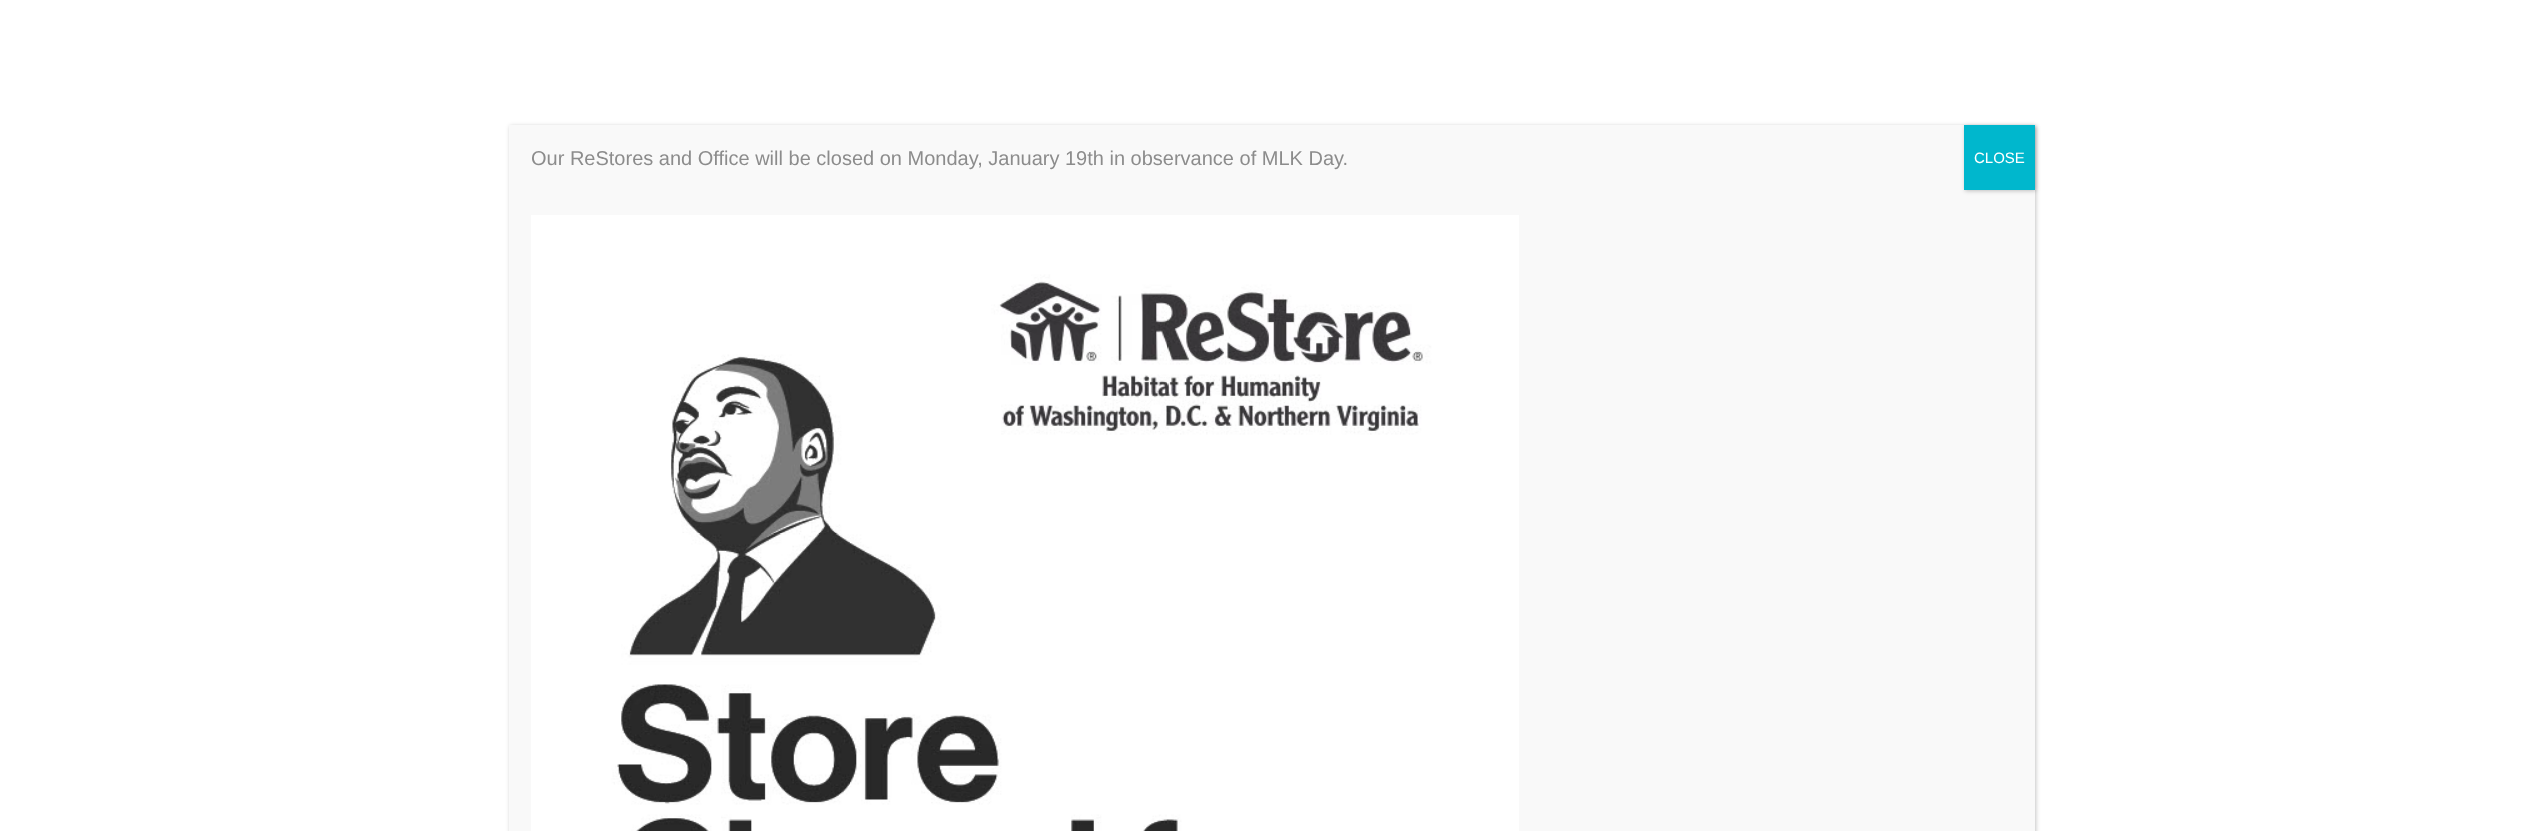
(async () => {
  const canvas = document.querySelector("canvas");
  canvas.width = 2543;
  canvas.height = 831;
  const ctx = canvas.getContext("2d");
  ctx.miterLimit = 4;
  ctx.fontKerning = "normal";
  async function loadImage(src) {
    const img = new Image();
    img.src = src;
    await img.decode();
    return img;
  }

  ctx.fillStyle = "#ffffff";
  ctx.fillRect(0, 0, 2543, 831);
  ctx.fillStyle = "rgba(2, 2, 2, 0.23)";
  ctx.filter = "blur(2px)";
  ctx.beginPath();
  ctx.rect(510, 126, 1526, 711);
  ctx.fill();
  ctx.filter = "none";
  ctx.fillStyle = "#f9f9f9";
  ctx.fillRect(509, 125, 1526, 706);
  ctx.drawImage(await loadImage("img/1.png"), 531, 215, 988, 616);
  ctx.fillStyle = "rgba(2, 2, 2, 0.23)";
  ctx.filter = "blur(2px)";
  ctx.beginPath();
  ctx.rect(1965, 126, 71, 65);
  ctx.fill();
  ctx.filter = "none";
  ctx.fillStyle = "#00b7cd";
  ctx.fillRect(1964, 125, 71, 65);
  ctx.font = "20px Liberation Sans";
  ctx.fillStyle = "#8c8c8c";
  ctx.fillText("Our ReStores and Office will be closed on Monday, January 19th in observance of MLK Day.", 531, 165);
  ctx.font = "15px Liberation Sans";
  ctx.fillStyle = "#ffffff";
  ctx.fillText("CLOSE", 1974, 163);
})();
